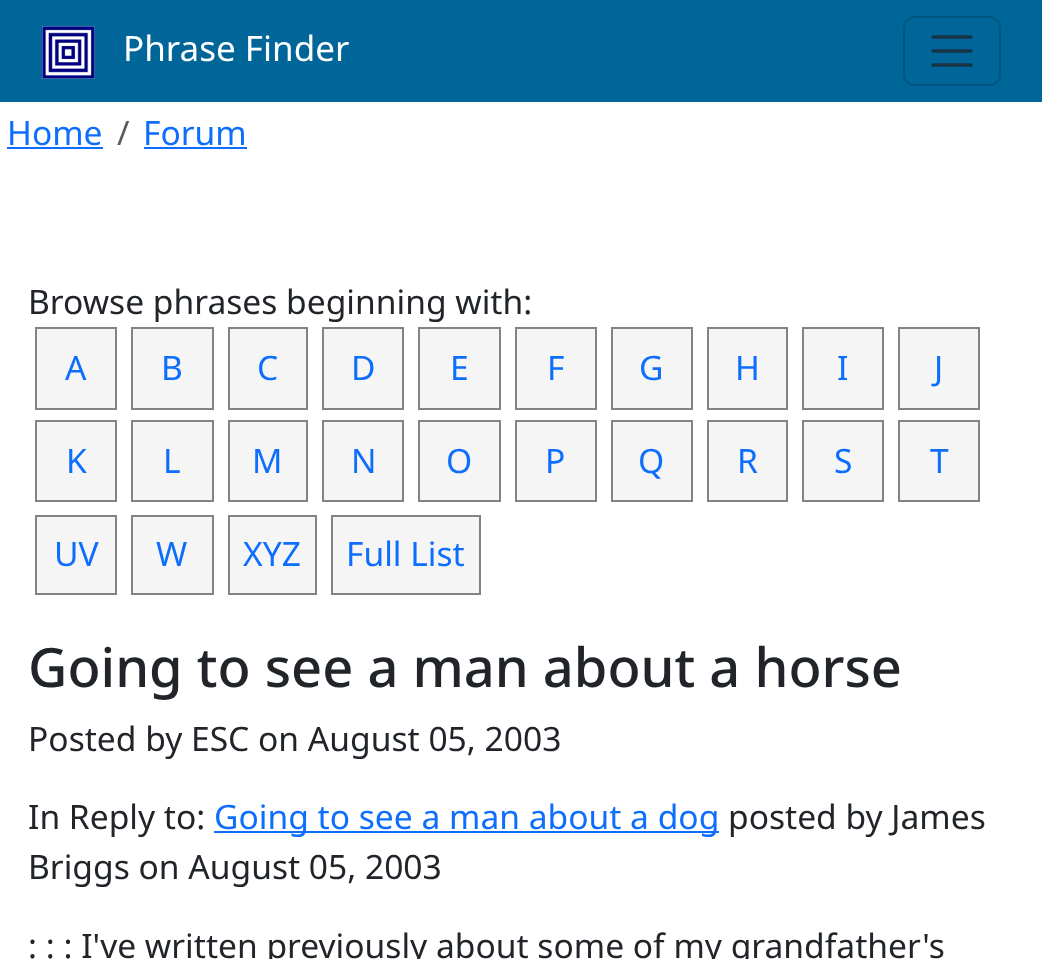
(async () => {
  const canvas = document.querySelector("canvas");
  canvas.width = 1042;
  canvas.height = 959;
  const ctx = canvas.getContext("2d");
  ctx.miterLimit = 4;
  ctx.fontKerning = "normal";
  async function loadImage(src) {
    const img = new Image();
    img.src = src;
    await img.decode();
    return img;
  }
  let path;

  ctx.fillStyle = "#ffffff";
  ctx.fillRect(0, 0, 1042, 959);
  ctx.fillStyle = "#006699";
  ctx.fillRect(0, 0, 1042, 102);
  ctx.drawImage(await loadImage("img/1.png"), 42, 26, 53, 53);
  ctx.beginPath();
  ctx.roundRect(904, 17, 96, 68, 10);
  ctx.strokeStyle = "#005782";
  ctx.lineWidth = 2;
  ctx.stroke();
  path = new Path2D("M933 37H971M933 51H971M933 65H971");
  ctx.strokeStyle = "#193545";
  ctx.lineWidth = 3.5;
  ctx.lineCap = "round";
  ctx.stroke(path);
  ctx.fillStyle = "#0d6efd";
  ctx.fillRect(7, 147, 96, 2);
  ctx.fillRect(144, 147, 103, 2);
  ctx.fillStyle = "#f5f5f5";
  ctx.beginPath();
  ctx.rect(36, 328, 80, 81);
  ctx.fill();
  ctx.strokeStyle = "#838383";
  ctx.lineWidth = 2;
  ctx.stroke();
  ctx.beginPath();
  ctx.rect(132, 328, 81, 81);
  ctx.fill();
  ctx.stroke();
  ctx.beginPath();
  ctx.rect(229, 328, 78, 81);
  ctx.fill();
  ctx.stroke();
  ctx.beginPath();
  ctx.rect(323, 328, 80, 81);
  ctx.fill();
  ctx.stroke();
  ctx.beginPath();
  ctx.rect(419, 328, 81, 81);
  ctx.fill();
  ctx.stroke();
  ctx.beginPath();
  ctx.rect(516, 328, 80, 81);
  ctx.fill();
  ctx.stroke();
  ctx.beginPath();
  ctx.rect(612, 328, 80, 81);
  ctx.fill();
  ctx.stroke();
  ctx.beginPath();
  ctx.rect(708, 328, 79, 81);
  ctx.fill();
  ctx.stroke();
  ctx.beginPath();
  ctx.rect(803, 328, 80, 81);
  ctx.fill();
  ctx.stroke();
  ctx.beginPath();
  ctx.rect(899, 328, 80, 81);
  ctx.fill();
  ctx.stroke();
  ctx.beginPath();
  ctx.rect(36, 421, 80, 80);
  ctx.fill();
  ctx.stroke();
  ctx.beginPath();
  ctx.rect(132, 421, 81, 80);
  ctx.fill();
  ctx.stroke();
  ctx.beginPath();
  ctx.rect(229, 421, 78, 80);
  ctx.fill();
  ctx.stroke();
  ctx.beginPath();
  ctx.rect(323, 421, 80, 80);
  ctx.fill();
  ctx.stroke();
  ctx.beginPath();
  ctx.rect(419, 421, 81, 80);
  ctx.fill();
  ctx.stroke();
  ctx.beginPath();
  ctx.rect(516, 421, 80, 80);
  ctx.fill();
  ctx.stroke();
  ctx.beginPath();
  ctx.rect(612, 421, 80, 80);
  ctx.fill();
  ctx.stroke();
  ctx.beginPath();
  ctx.rect(708, 421, 79, 80);
  ctx.fill();
  ctx.stroke();
  ctx.beginPath();
  ctx.rect(803, 421, 80, 80);
  ctx.fill();
  ctx.stroke();
  ctx.beginPath();
  ctx.rect(899, 421, 80, 80);
  ctx.fill();
  ctx.stroke();
  ctx.beginPath();
  ctx.rect(36, 516, 80, 78);
  ctx.fill();
  ctx.stroke();
  ctx.beginPath();
  ctx.rect(132, 516, 81, 78);
  ctx.fill();
  ctx.stroke();
  ctx.beginPath();
  ctx.rect(229, 516, 87, 78);
  ctx.fill();
  ctx.stroke();
  ctx.beginPath();
  ctx.rect(332, 516, 148, 78);
  ctx.fill();
  ctx.stroke();
  ctx.fillStyle = "#0d6efd";
  ctx.fillRect(214, 831, 505, 2);
  ctx.font = "35px Noto Sans";
  ctx.fillStyle = "#ffffff";
  ctx.fillText("Phrase Finder", 123, 61);
  ctx.font = "33.6px Noto Sans";
  ctx.fillStyle = "#0d6efd";
  ctx.fillText("Home", 7, 145);
  ctx.fillStyle = "#595c5f";
  ctx.fillText("/", 117, 145);
  ctx.fillStyle = "#0d6efd";
  ctx.fillText("Forum", 143, 145);
  ctx.fillStyle = "#212529";
  ctx.fillText("Browse phrases beginning with:", 28, 314);
  ctx.fillStyle = "#0d6efd";
  for (const [text, x, y] of [
    ["A", 65, 380],
    ["B", 161, 380],
    ["C", 257, 380],
    ["D", 351, 380],
    ["E", 450, 380],
    ["F", 547, 380],
    ["G", 639, 380],
    ["H", 735, 380],
    ["I", 837, 380],
    ["J", 934, 380],
    ["K", 66, 473],
    ["L", 163, 473],
    ["M", 252, 473],
    ["N", 351, 473],
    ["O", 446, 473],
    ["P", 545, 473],
    ["Q", 638, 473],
    ["R", 737, 473],
    ["S", 834, 473],
    ["T", 930, 473],
    ["UV", 54, 566],
    ["W", 156, 566],
    ["XYZ", 243, 566],
    ["Full List", 346, 566],
  ]) {
    ctx.fillText(text, x, y);
  }
  ctx.font = "500 54.2px Noto Sans";
  ctx.fillStyle = "#212529";
  ctx.fillText("Going to see a man about a horse", 28, 687);
  ctx.font = "33.6px Noto Sans";
  ctx.fillText("Posted by ESC on August 05, 2003", 28, 751);
  ctx.fillText("In Reply to:", 28, 829);
  ctx.fillStyle = "#0d6efd";
  ctx.fillText("Going to see a man about a dog", 214, 829);
  ctx.fillStyle = "#212529";
  for (const [text, x, y] of [
    ["posted by James", 728, 829],
    ["Briggs on August 05, 2003", 28, 879],
    [": : : I've written previously about some of my grandfather's", 28, 958],
  ]) {
    ctx.fillText(text, x, y);
  }
})();
